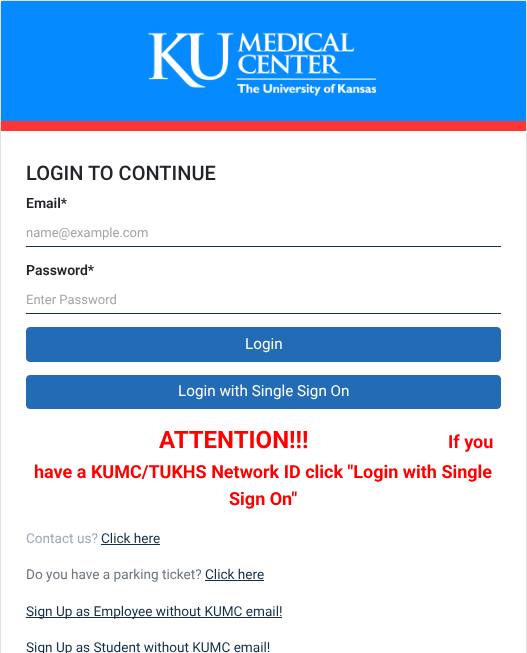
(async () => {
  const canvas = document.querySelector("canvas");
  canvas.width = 527;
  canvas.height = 653;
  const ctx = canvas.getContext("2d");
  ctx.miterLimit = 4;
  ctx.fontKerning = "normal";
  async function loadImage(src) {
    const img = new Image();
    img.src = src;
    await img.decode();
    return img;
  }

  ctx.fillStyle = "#ffffff";
  ctx.fillRect(0, 0, 527, 653);
  ctx.beginPath();
  ctx.roundRect(0.5, 0.5, 526, 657, 3.5);
  ctx.strokeStyle = "#dfdfdf";
  ctx.stroke();
  ctx.fillStyle = "#068aff";
  ctx.fillRect(1, 1, 525, 120);
  ctx.fillStyle = "#ff3535";
  ctx.fillRect(1, 121, 525, 10);
  ctx.drawImage(await loadImage("img/1.png"), 148, 32, 229, 64);
  ctx.fillStyle = "#142f46";
  ctx.fillRect(26, 246, 475, 1);
  ctx.fillRect(26, 313, 475, 1);
  ctx.fillStyle = "#236bb4";
  ctx.beginPath();
  ctx.roundRect(26.5, 327.5, 474, 34, 3.5);
  ctx.fill();
  ctx.strokeStyle = "#236bb4";
  ctx.stroke();
  ctx.beginPath();
  ctx.roundRect(26.5, 375.5, 474, 33, 3.5);
  ctx.fill();
  ctx.stroke();
  for (const [x, y, w, h, color] of [
    [101, 544, 59, 1, "#142f47"],
    [205, 580, 59, 1, "#142f47"],
    [26, 617, 256, 1, "#142f47"],
  ]) {
    ctx.fillStyle = color;
    ctx.fillRect(x, y, w, h);
  }
  ctx.font = "500 20px Roboto";
  ctx.fillStyle = "#212529";
  ctx.fillText("LOGIN TO CONTINUE", 26, 180);
  ctx.font = "600 14px Roboto";
  ctx.fillText("Email*", 26, 208);
  ctx.font = "13px Roboto";
  ctx.fillStyle = "#a5a5a5";
  ctx.fillText("name@example.com", 26, 237);
  ctx.font = "600 14px Roboto";
  ctx.fillStyle = "#212529";
  ctx.fillText("Password*", 26, 275);
  ctx.font = "13px Roboto";
  ctx.fillStyle = "#a5a5a5";
  ctx.fillText("Enter Password", 26, 304);
  ctx.font = "15.25px Roboto";
  ctx.fillStyle = "#ffffff";
  ctx.fillText("Login", 245, 349);
  ctx.fillText("Login with Single Sign On", 178, 396);
  ctx.font = "bold 24px Roboto";
  ctx.fillStyle = "#ff0000";
  ctx.fillText("ATTENTION!!!", 159, 448);
  ctx.font = "bold 18px Roboto";
  for (const [text, x, y] of [
    ["If you", 448, 448],
    ["have a KUMC/TUKHS Network ID click \"Login with Single", 34, 478],
    ["Sign On\"", 229, 505],
  ]) {
    ctx.fillText(text, x, y);
  }
  ctx.font = "13.6px Roboto";
  ctx.fillStyle = "#9ba8b5";
  ctx.fillText("Contact us?", 26, 543);
  ctx.fillStyle = "#142f47";
  ctx.fillText("Click here", 101, 543);
  ctx.fillStyle = "#6c757d";
  ctx.fillText("Do you have a parking ticket?", 26, 579);
  ctx.fillStyle = "#142f47";
  for (const [text, x, y] of [
    ["Click here", 205, 579],
    ["Sign Up as Employee without KUMC email!", 26, 616],
    ["Sign Up as Student without KUMC email!", 26, 652],
  ]) {
    ctx.fillText(text, x, y);
  }
})();
